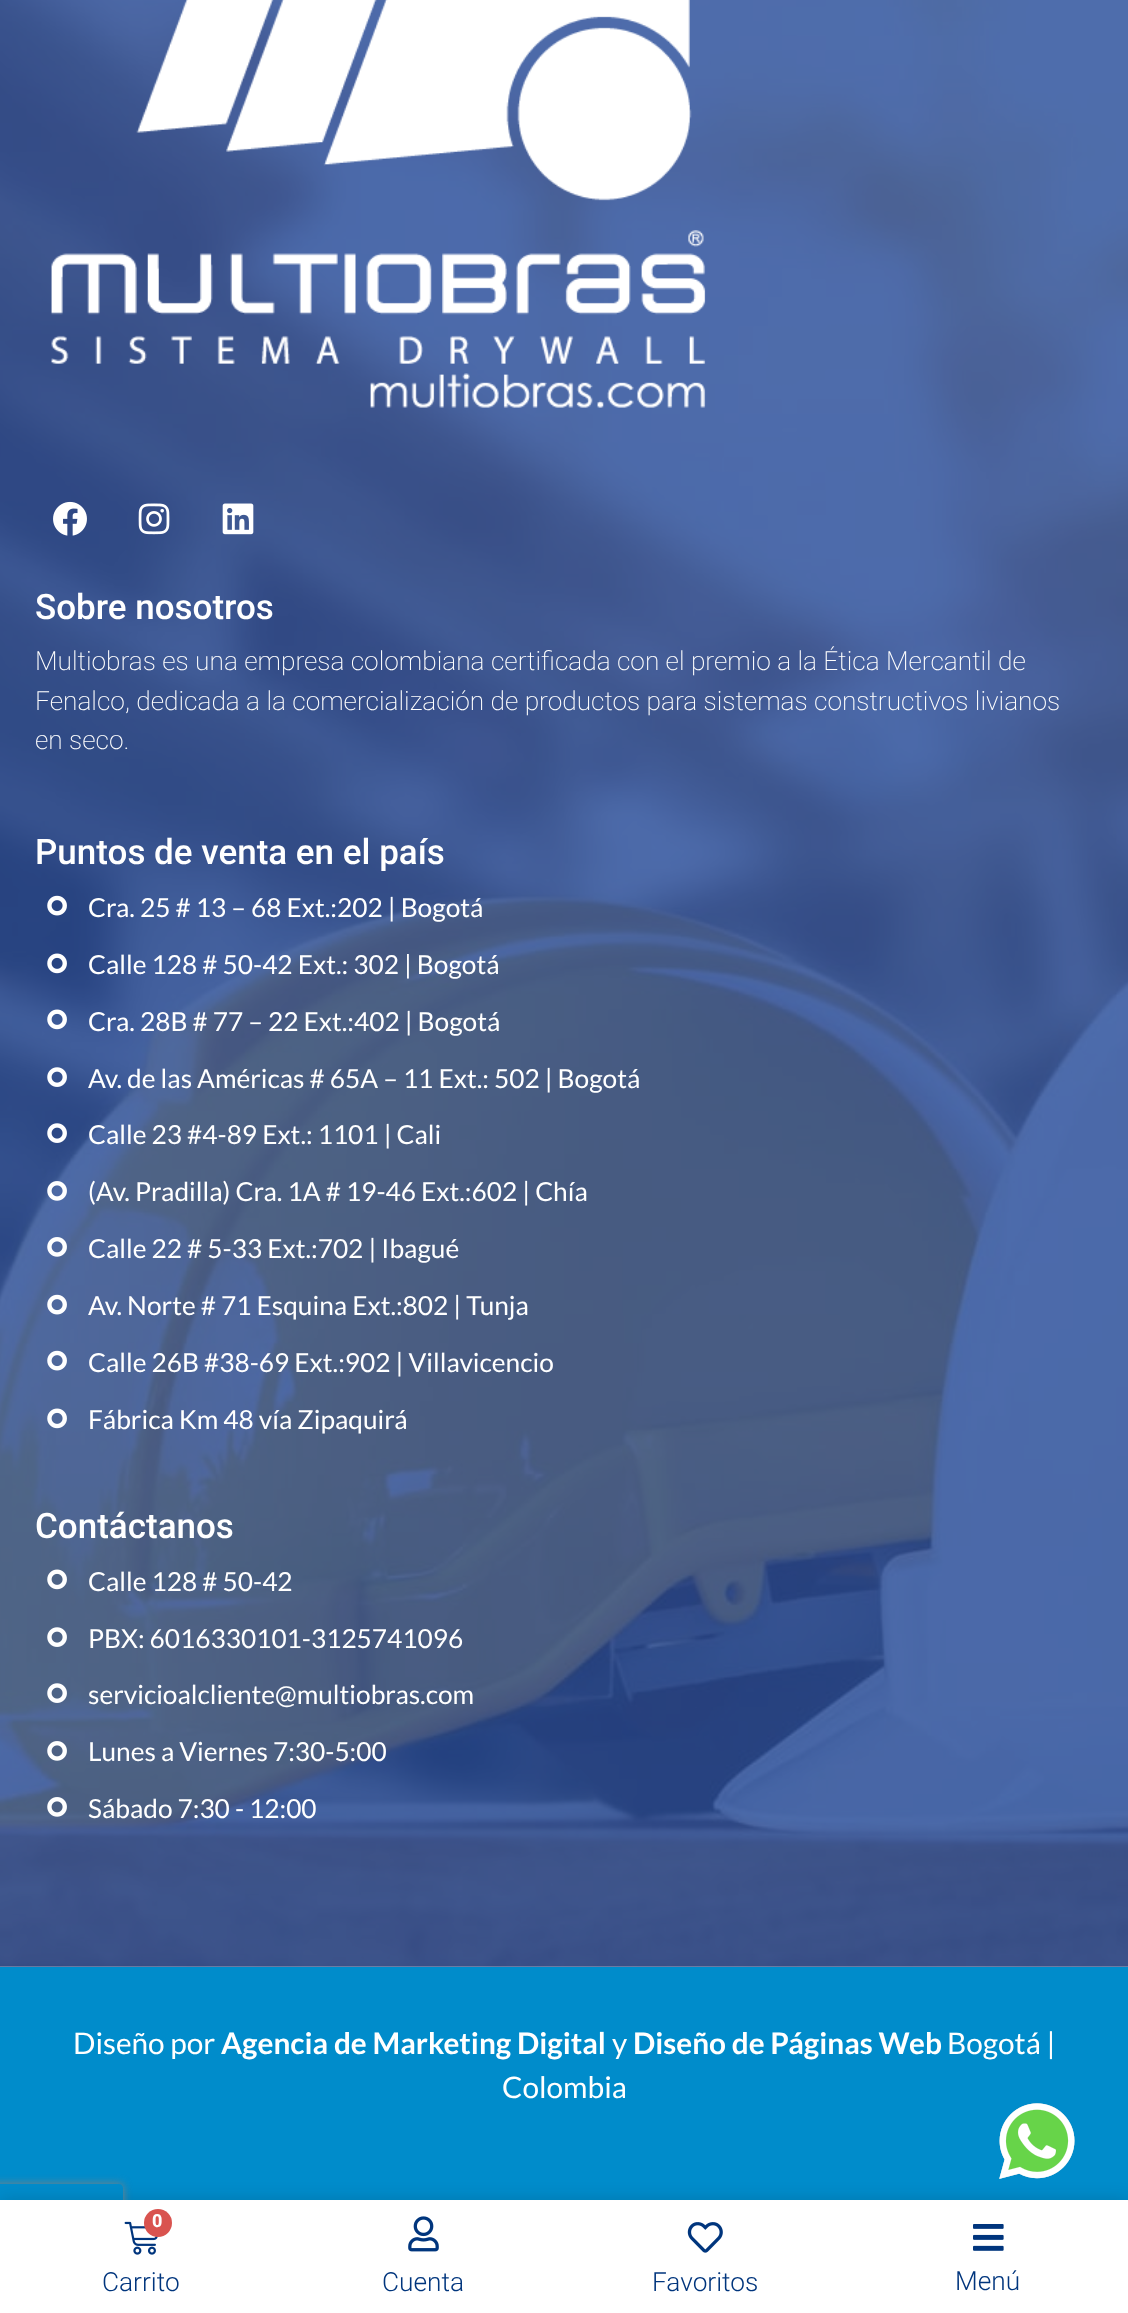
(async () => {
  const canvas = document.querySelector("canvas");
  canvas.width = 1128;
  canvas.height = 2313;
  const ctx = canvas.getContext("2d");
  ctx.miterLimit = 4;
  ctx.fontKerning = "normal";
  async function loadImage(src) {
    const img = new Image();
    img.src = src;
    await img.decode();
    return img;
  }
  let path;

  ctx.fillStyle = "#ffffff";
  ctx.fillRect(0, 0, 1128, 2313);
  ctx.drawImage(await loadImage("img/1.png"), 0, 0, 1128, 1967);
  ctx.drawImage(await loadImage("img/2.png"), 51, 0, 655, 408);
  ctx.drawImage(await loadImage("img/3.png"), 53, 501, 34, 35);
  ctx.drawImage(await loadImage("img/4.png"), 138, 503, 32, 32);
  ctx.drawImage(await loadImage("img/5.png"), 222, 503, 32, 32);
  ctx.drawImage(await loadImage("img/6.png"), 47, 895, 20, 21);
  ctx.drawImage(await loadImage("img/7.png"), 47, 953, 20, 21);
  ctx.drawImage(await loadImage("img/8.png"), 47, 1009, 20, 21);
  ctx.drawImage(await loadImage("img/9.png"), 47, 1067, 20, 20);
  ctx.drawImage(await loadImage("img/10.png"), 47, 1123, 20, 20);
  ctx.drawImage(await loadImage("img/11.png"), 47, 1181, 20, 20);
  ctx.drawImage(await loadImage("img/12.png"), 47, 1237, 20, 20);
  ctx.drawImage(await loadImage("img/13.png"), 47, 1294, 20, 21);
  ctx.drawImage(await loadImage("img/14.png"), 47, 1350, 20, 21);
  ctx.drawImage(await loadImage("img/15.png"), 47, 1408, 20, 21);
  ctx.drawImage(await loadImage("img/16.png"), 47, 1569, 20, 21);
  ctx.drawImage(await loadImage("img/17.png"), 47, 1627, 20, 20);
  ctx.drawImage(await loadImage("img/18.png"), 47, 1683, 20, 20);
  ctx.drawImage(await loadImage("img/19.png"), 47, 1741, 20, 20);
  ctx.drawImage(await loadImage("img/20.png"), 47, 1797, 20, 20);
  ctx.fillStyle = "#008ccb";
  ctx.fillRect(0, 1967, 1128, 233);
  ctx.fillStyle = "rgba(0, 0, 0, 0.15)";
  ctx.filter = "blur(9px)";
  ctx.beginPath();
  ctx.rect(0, 2200, 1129, 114);
  ctx.fill();
  ctx.filter = "none";
  ctx.drawImage(await loadImage("img/21.png"), 999, 2103, 76, 76);
  ctx.save();
  path = new Path2D("M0 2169H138V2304H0ZM-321 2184H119C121 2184 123 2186 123 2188V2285C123 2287 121 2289 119 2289H-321C-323 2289-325 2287-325 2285V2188C-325 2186-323 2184-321 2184Z");
  ctx.clip(path, "evenodd");
  ctx.fillStyle = "#808080";
  ctx.filter = "blur(4.5px)";
  ctx.beginPath();
  ctx.roundRect(-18, 2184, 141, 105, 4);
  ctx.fill();
  ctx.filter = "none";
  ctx.restore();
  ctx.fillStyle = "#ffffff";
  ctx.fillRect(0, 2200, 1128, 113);
  ctx.drawImage(await loadImage("img/22.png"), 124, 2221, 34, 34);
  ctx.fillStyle = "#d9534f";
  ctx.beginPath();
  ctx.arc(158, 2223, 14, 0, Math.PI * 2);
  ctx.fill();
  ctx.drawImage(await loadImage("img/23.png"), 408, 2216, 31, 36);
  ctx.drawImage(await loadImage("img/24.png"), 687, 2222, 36, 31);
  ctx.drawImage(await loadImage("img/25.png"), 973, 2224, 31, 27);
  ctx.font = "500 35px Roboto";
  ctx.fillStyle = "#ffffff";
  ctx.fillText("Sobre nosotros", 35, 619);
  ctx.font = "200 26.25px Roboto";
  for (const [text, x, y] of [
    ["Multiobras es una empresa colombiana certificada con el premio a la Ética Mercantil de", 35, 670],
    ["Fenalco, dedicada a la comercialización de productos para sistemas constructivos livianos", 35, 710],
    ["en seco.", 35, 749],
  ]) {
    ctx.fillText(text, x, y);
  }
  ctx.font = "500 35px Roboto";
  ctx.fillText("Puntos de venta en el país", 35, 864);
  ctx.font = "26.25px Lato";
  for (const [text, x, y] of [
    ["Cra. 25 # 13 – 68 Ext.:202 | Bogotá", 88, 917],
    ["Calle 128 # 50-42 Ext.: 302 | Bogotá", 88, 974],
    ["Cra. 28B # 77 – 22 Ext.:402 | Bogotá", 88, 1031],
    ["Av. de las Américas # 65A – 11 Ext.: 502 | Bogotá", 88, 1088],
    ["Calle 23 #4-89 Ext.: 1101 | Cali", 88, 1144],
    ["(Av. Pradilla) Cra. 1A # 19-46 Ext.:602 | Chía", 88, 1201],
    ["Calle 22 # 5-33 Ext.:702 | Ibagué", 88, 1258],
    ["Av. Norte # 71 Esquina Ext.:802 | Tunja", 88, 1315],
    ["Calle 26B #38-69 Ext.:902 | Villavicencio", 88, 1372],
    ["Fábrica Km 48 vía Zipaquirá", 88, 1429],
  ]) {
    ctx.fillText(text, x, y);
  }
  ctx.font = "500 35px Roboto";
  ctx.fillText("Contáctanos", 35, 1538);
  ctx.font = "26.25px Lato";
  for (const [text, x, y] of [
    ["Calle 128 # 50-42", 88, 1591],
    ["PBX: 6016330101-3125741096", 88, 1648],
    ["servicioalcliente@multiobras.com", 88, 1704],
    ["Lunes a Viernes 7:30-5:00", 88, 1761],
    ["Sábado 7:30 - 12:00", 88, 1818],
  ]) {
    ctx.fillText(text, x, y);
  }
  ctx.font = "29.75px Lato";
  ctx.fillText("Diseño por", 73, 2054);
  ctx.font = "bold 29.75px Lato";
  ctx.fillText("Agencia de Marketing Digital", 221, 2054);
  ctx.font = "29.75px Lato";
  ctx.fillText("y", 612, 2054);
  ctx.font = "bold 29.75px Lato";
  ctx.fillText("Diseño de Páginas Web", 633, 2054);
  ctx.font = "29.75px Lato";
  ctx.fillText("Bogotá |", 947, 2054);
  ctx.fillText("Colombia", 502, 2098);
  ctx.font = "800 18px Roboto";
  ctx.fillText("0", 152, 2227);
  ctx.font = "300 26.25px Roboto";
  ctx.fillStyle = "#00357d";
  for (const [text, x, y] of [
    ["Carrito", 102, 2291],
    ["Cuenta", 382, 2291],
    ["Favoritos", 652, 2291],
    ["Menú", 955, 2290],
  ]) {
    ctx.fillText(text, x, y);
  }
})();
